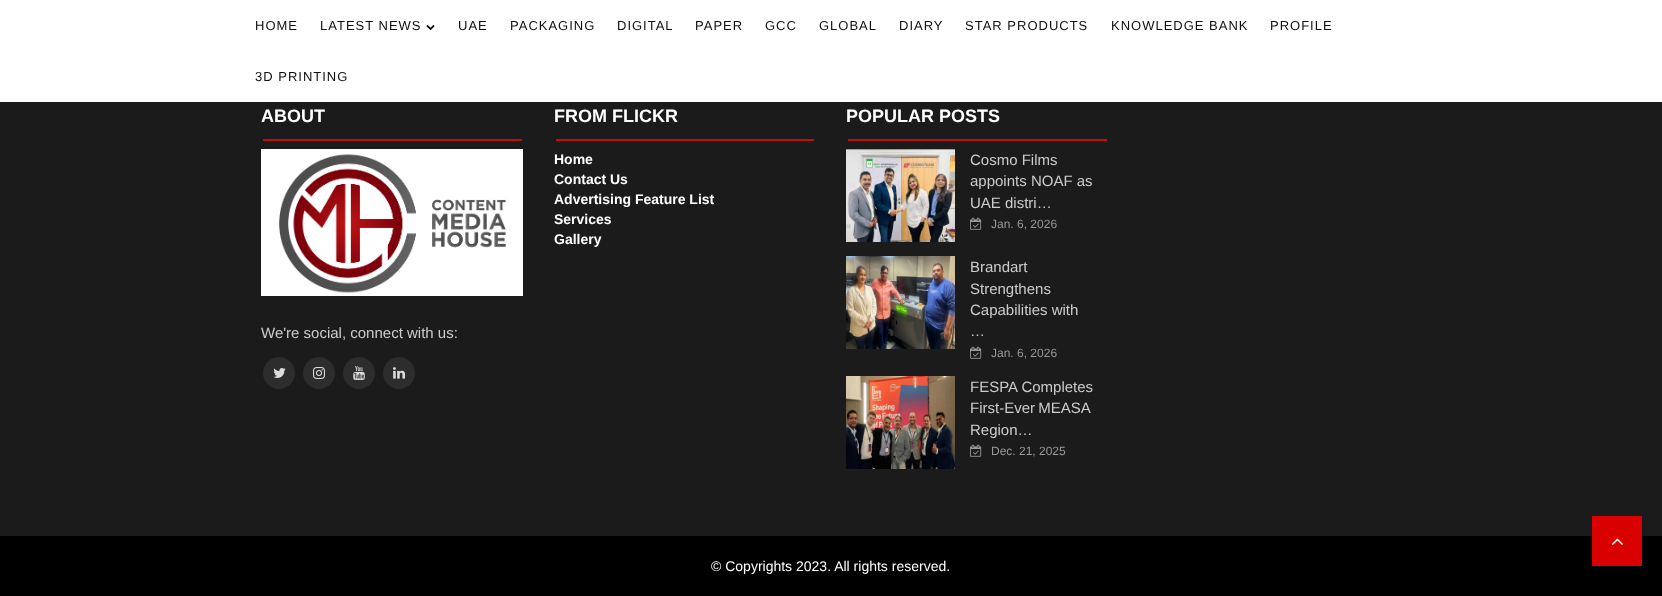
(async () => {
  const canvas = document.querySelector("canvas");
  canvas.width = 1662;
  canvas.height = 596;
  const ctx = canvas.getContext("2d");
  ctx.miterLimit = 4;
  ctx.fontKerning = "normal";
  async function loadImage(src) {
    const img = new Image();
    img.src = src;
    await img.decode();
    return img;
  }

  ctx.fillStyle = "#1b1b1b";
  ctx.fillRect(0, 0, 1662, 596);
  ctx.fillStyle = "#ffffff";
  ctx.fillRect(0, 0, 1662, 102);
  ctx.drawImage(await loadImage("img/1.png"), 426, 25, 9, 6);
  ctx.save();
  ctx.beginPath();
  ctx.rect(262, 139, 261, 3);
  ctx.clip();
  ctx.fillStyle = "#c40d0d";
  ctx.filter = "blur(0.5px)";
  ctx.beginPath();
  ctx.rect(263, 109, 259, 32);
  ctx.fill();
  ctx.filter = "none";
  ctx.restore();
  ctx.drawImage(await loadImage("img/2.png"), 261, 149, 262, 147);
  ctx.fillStyle = "#2d2d2d";
  ctx.beginPath();
  ctx.arc(279, 373, 16, 0, Math.PI * 2);
  ctx.fill();
  ctx.drawImage(await loadImage("img/3.png"), 273, 368, 13, 10);
  ctx.beginPath();
  ctx.arc(319, 373, 16, 0, Math.PI * 2);
  ctx.fill();
  ctx.drawImage(await loadImage("img/4.png"), 313, 367, 12, 12);
  ctx.beginPath();
  ctx.arc(359, 373, 16, 0, Math.PI * 2);
  ctx.fill();
  ctx.drawImage(await loadImage("img/5.png"), 353, 366, 12, 14);
  ctx.beginPath();
  ctx.arc(399, 373, 16, 0, Math.PI * 2);
  ctx.fill();
  ctx.drawImage(await loadImage("img/6.png"), 393, 367, 12, 12);
  ctx.save();
  ctx.beginPath();
  ctx.rect(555, 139, 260, 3);
  ctx.clip();
  ctx.fillStyle = "#c40d0d";
  ctx.filter = "blur(0.5px)";
  ctx.beginPath();
  ctx.rect(556, 109, 258, 32);
  ctx.fill();
  ctx.filter = "none";
  ctx.restore();
  ctx.save();
  ctx.beginPath();
  ctx.rect(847, 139, 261, 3);
  ctx.clip();
  ctx.fillStyle = "#c40d0d";
  ctx.filter = "blur(0.5px)";
  ctx.beginPath();
  ctx.rect(848, 109, 259, 32);
  ctx.fill();
  ctx.filter = "none";
  ctx.restore();
  ctx.drawImage(await loadImage("img/7.png"), 846, 149, 109, 93);
  ctx.drawImage(await loadImage("img/8.png"), 970, 217, 12, 13);
  ctx.drawImage(await loadImage("img/9.png"), 846, 256, 109, 93);
  ctx.drawImage(await loadImage("img/8.png"), 970, 346, 12, 13);
  ctx.drawImage(await loadImage("img/10.png"), 846, 376, 109, 93);
  ctx.drawImage(await loadImage("img/8.png"), 970, 444, 12, 13);
  ctx.fillStyle = "#000000";
  ctx.fillRect(0, 536, 1662, 60);
  ctx.fillStyle = "#da0000";
  ctx.fillRect(1592, 516, 50, 50);
  ctx.drawImage(await loadImage("img/11.png"), 1611, 538, 12, 7);
  ctx.letterSpacing = "1px";
  ctx.font = "13px Liberation Sans";
  ctx.fillStyle = "#101010";
  for (const [text, x, y] of [
    ["HOME", 255, 30],
    ["LATEST NEWS", 320, 30],
    ["UAE", 458, 30],
    ["PACKAGING", 510, 30],
    ["DIGITAL", 617, 30],
    ["PAPER", 695, 30],
    ["GCC", 765, 30],
    ["GLOBAL", 819, 30],
    ["DIARY", 899, 30],
    ["STAR PRODUCTS", 965, 30],
    ["KNOWLEDGE BANK", 1111, 30],
    ["PROFILE", 1270, 30],
    ["3D PRINTING", 255, 81],
  ]) {
    ctx.fillText(text, x, y);
  }
  ctx.letterSpacing = "0px";
  ctx.font = "bold 18px Liberation Sans";
  ctx.fillStyle = "#ffffff";
  ctx.fillText("ABOUT", 261, 122);
  ctx.font = "15px Liberation Sans";
  ctx.fillStyle = "#cccccc";
  ctx.fillText("We're social, connect with us:", 261, 338);
  ctx.font = "bold 18px Liberation Sans";
  ctx.fillStyle = "#ffffff";
  ctx.fillText("FROM FLICKR", 554, 122);
  ctx.font = "bold 14px Liberation Sans";
  for (const [text, x, y] of [
    ["Home", 554, 164],
    ["Contact Us", 554, 184],
    ["Advertising Feature List", 554, 204],
    ["Services", 554, 224],
    ["Gallery", 554, 244],
  ]) {
    ctx.fillText(text, x, y);
  }
  ctx.font = "bold 18px Liberation Sans";
  ctx.fillText("POPULAR POSTS", 846, 122);
  ctx.font = "15px Liberation Sans";
  ctx.fillStyle = "#cccccc";
  for (const [text, x, y] of [
    ["Cosmo Films", 970, 165],
    ["appoints NOAF as", 970, 186],
    ["UAE distri…", 970, 208],
  ]) {
    ctx.fillText(text, x, y);
  }
  ctx.font = "12px Liberation Sans";
  ctx.fillStyle = "#999999";
  ctx.fillText("Jan. 6, 2026", 991, 228);
  ctx.font = "15px Liberation Sans";
  ctx.fillStyle = "#cccccc";
  for (const [text, x, y] of [
    ["Brandart", 970, 272],
    ["Strengthens", 970, 294],
    ["Capabilities with", 970, 315],
    ["…", 970, 336],
  ]) {
    ctx.fillText(text, x, y);
  }
  ctx.font = "12px Liberation Sans";
  ctx.fillStyle = "#999999";
  ctx.fillText("Jan. 6, 2026", 991, 357);
  ctx.font = "15px Liberation Sans";
  ctx.fillStyle = "#cccccc";
  ctx.fillText("FESPA Completes", 970, 392);
  ctx.wordSpacing = "-1px";
  ctx.fillText("First-Ever MEASA", 970, 413);
  ctx.wordSpacing = "0px";
  ctx.fillText("Region…", 970, 435);
  ctx.font = "12px Liberation Sans";
  ctx.fillStyle = "#999999";
  ctx.fillText("Dec. 21, 2025", 991, 455);
  ctx.font = "14px Liberation Sans";
  ctx.fillStyle = "#ffffff";
  ctx.fillText("© Copyrights 2023. All rights reserved.", 711, 571);
})();
